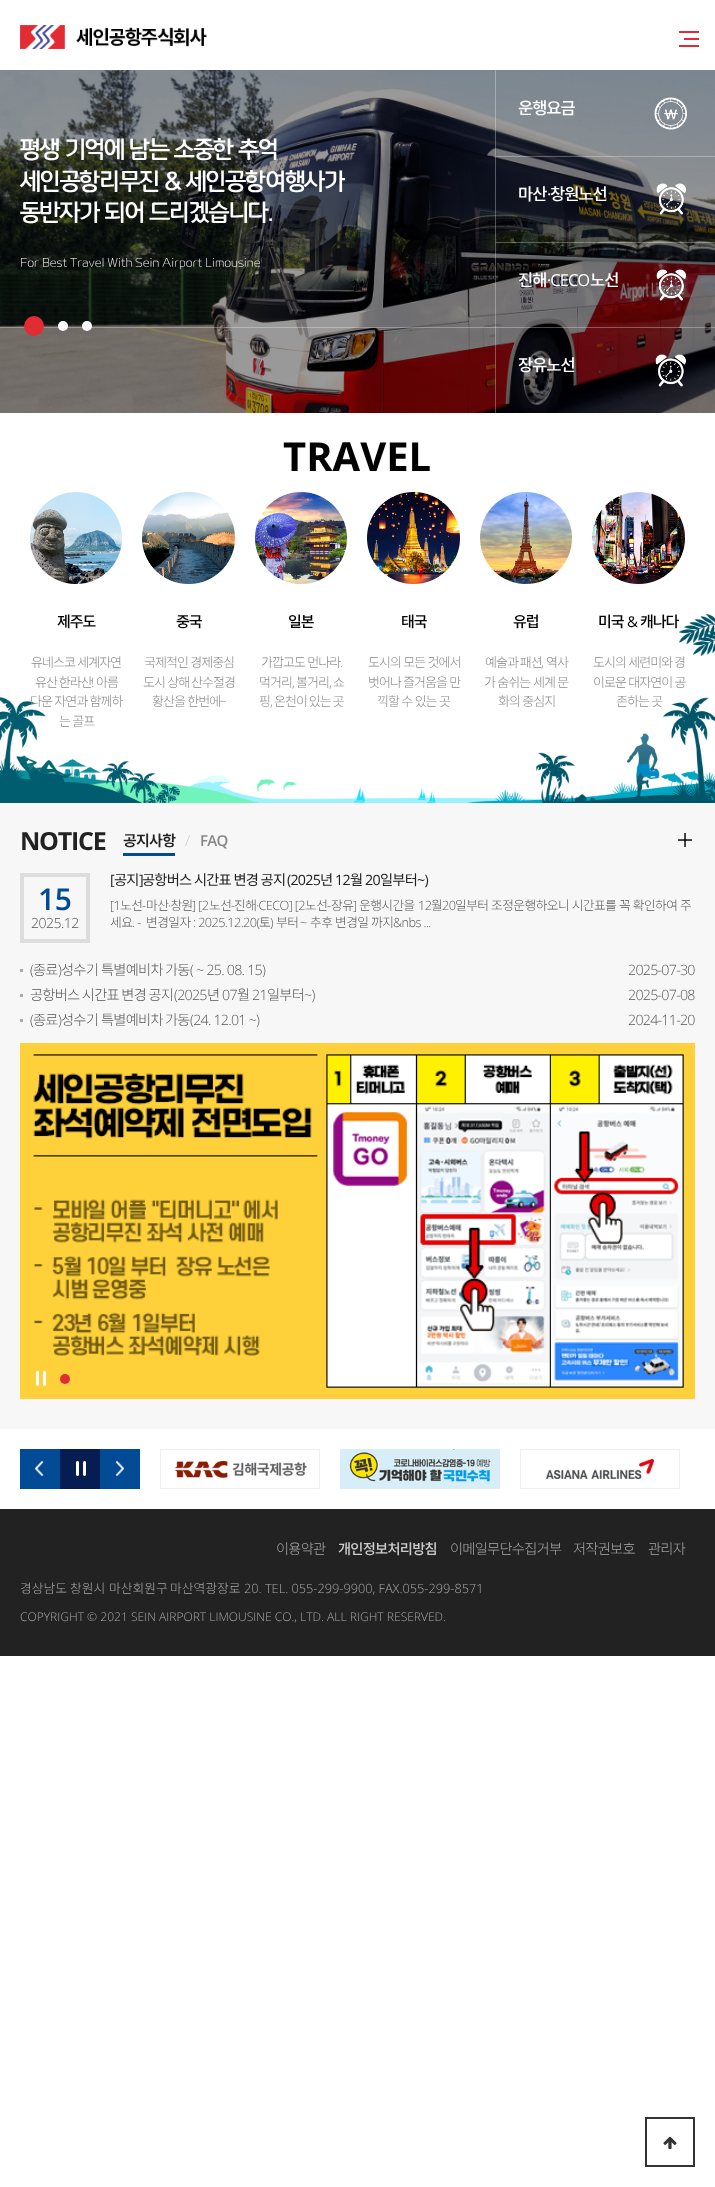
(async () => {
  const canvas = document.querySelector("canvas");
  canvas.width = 715;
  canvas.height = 2187;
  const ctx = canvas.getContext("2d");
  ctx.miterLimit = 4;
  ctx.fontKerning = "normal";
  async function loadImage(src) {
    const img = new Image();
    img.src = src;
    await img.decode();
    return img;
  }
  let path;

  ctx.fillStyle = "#ffffff";
  ctx.fillRect(0, 0, 715, 2187);
  ctx.drawImage(await loadImage("img/1.png"), 20, 25, 187, 24);
  for (const [x, y, w, h, color] of [
    [684, 38, 15, 2, "#e22c33"],
    [679, 31, 20, 2, "#e22c33"],
    [679, 45, 20, 2, "#e22c33"],
  ]) {
    ctx.fillStyle = color;
    ctx.fillRect(x, y, w, h);
  }
  ctx.drawImage(await loadImage("img/2.png"), 0, 70, 715, 343);
  ctx.drawImage(await loadImage("img/3.png"), 654, 97, 33, 33);
  ctx.fillStyle = "rgba(255, 255, 255, 0.3)";
  ctx.fillRect(495, 70, 1, 86);
  ctx.drawImage(await loadImage("img/4.png"), 656, 183, 30, 32);
  path = new Path2D("M495 156H715V157H496Z");
  ctx.fill(path);
  path = new Path2D("M495 242V156L496 157V242Z");
  ctx.fill(path);
  ctx.drawImage(await loadImage("img/5.png"), 656, 269, 30, 32);
  path = new Path2D("M495 242H715V243H496Z");
  ctx.fill(path);
  path = new Path2D("M495 327V242L496 243V327Z");
  ctx.fill(path);
  ctx.drawImage(await loadImage("img/6.png"), 655, 354, 31, 33);
  ctx.fillRect(0, 327, 715, 1);
  ctx.fillRect(495, 327, 1, 86);
  ctx.fillStyle = "#e22c33";
  ctx.beginPath();
  ctx.arc(34, 326, 10, 0, Math.PI * 2);
  ctx.fill();
  ctx.fillStyle = "#ffffff";
  ctx.beginPath();
  ctx.arc(63, 326, 5, 0, Math.PI * 2);
  ctx.fill();
  ctx.beginPath();
  ctx.arc(87, 326, 5, 0, Math.PI * 2);
  ctx.fill();
  ctx.drawImage(await loadImage("img/7.png"), 0, 614, 715, 189);
  ctx.drawImage(await loadImage("img/8.png"), 30, 492, 92, 92);
  ctx.drawImage(await loadImage("img/9.png"), 142, 492, 93, 92);
  ctx.drawImage(await loadImage("img/10.png"), 255, 492, 92, 92);
  ctx.drawImage(await loadImage("img/11.png"), 367, 492, 93, 92);
  ctx.drawImage(await loadImage("img/12.png"), 480, 492, 92, 92);
  ctx.drawImage(await loadImage("img/13.png"), 592, 492, 93, 92);
  ctx.fillStyle = "#f7f7f7";
  ctx.fillRect(0, 803, 715, 626);
  ctx.fillStyle = "#014a96";
  ctx.fillRect(123, 853, 52, 3);
  ctx.drawImage(await loadImage("img/14.png"), 678, 833, 14, 14);
  ctx.strokeStyle = "#dddddd";
  ctx.lineWidth = 4;
  ctx.strokeRect(22, 875, 66, 66);
  for (const [x, y, w, h, color] of [
    [20, 969, 3, 3, "#aaaaaa"],
    [20, 994, 3, 3, "#aaaaaa"],
    [20, 1019, 3, 3, "#aaaaaa"],
  ]) {
    ctx.fillStyle = color;
    ctx.fillRect(x, y, w, h);
  }
  ctx.drawImage(await loadImage("img/15.png"), 20, 1043, 675, 356);
  ctx.drawImage(await loadImage("img/16.png"), 36, 1371, 10, 15);
  ctx.fillStyle = "#e22c33";
  ctx.beginPath();
  ctx.arc(65, 1379, 5, 0, Math.PI * 2);
  ctx.fill();
  ctx.fillStyle = "#014a96";
  ctx.fillRect(20, 1449, 120, 40);
  ctx.drawImage(await loadImage("img/17.png"), 35, 1461, 9, 15);
  ctx.drawImage(await loadImage("img/18.png"), 115, 1461, 9, 15);
  ctx.fillStyle = "#061d53";
  ctx.fillRect(60, 1449, 40, 40);
  ctx.drawImage(await loadImage("img/19.png"), 76, 1461, 10, 15);
  ctx.drawImage(await loadImage("img/20.png"), 160, 1449, 160, 40);
  ctx.drawImage(await loadImage("img/21.png"), 340, 1449, 160, 40);
  ctx.drawImage(await loadImage("img/22.png"), 520, 1449, 160, 40);
  ctx.fillStyle = "#222222";
  ctx.fillRect(0, 1509, 715, 147);
  ctx.strokeStyle = "#333333";
  ctx.lineWidth = 2;
  ctx.strokeRect(646, 2118, 48, 48);
  ctx.drawImage(await loadImage("img/23.png"), 663, 2136, 14, 14);
  ctx.letterSpacing = "-1.1px";
  ctx.font = "bold 22.5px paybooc";
  ctx.fillStyle = "#ffffff";
  for (const [text, x, y] of [
    ["평생 기억에 남는 소중한 추억", 20, 156],
    ["세인공항리무진 & 세인공항여행사가", 20, 188],
    ["동반자가 되어 드리겠습니다.", 20, 219],
  ]) {
    ctx.fillText(text, x, y);
  }
  ctx.letterSpacing = "0px";
  ctx.font = "300 11px paybooc";
  ctx.fillText("For Best Travel With Sein Airport Limousine", 20, 266);
  ctx.letterSpacing = "-1px";
  ctx.font = "500 16.5px Noto Sans KR";
  ctx.fillText("운행요금", 518, 114);
  ctx.fillText("마산", 518, 200);
  ctx.font = "16.5px Open Sans";
  ctx.fillText("·", 547, 200);
  ctx.font = "500 16.5px Noto Sans KR";
  ctx.fillText("창원노선", 550, 200);
  ctx.fillText("진해", 518, 286);
  ctx.font = "16.5px Open Sans";
  ctx.fillText("·CECO", 547, 286);
  ctx.font = "500 16.5px Noto Sans KR";
  ctx.fillText("노선", 590, 286);
  ctx.fillText("장유노선", 518, 371);
  ctx.letterSpacing = "0px";
  ctx.font = "bold 40px Open Sans";
  ctx.fillStyle = "#000000";
  ctx.fillText("TRAVEL", 283, 471);
  ctx.letterSpacing = "-1px";
  ctx.font = "500 15px Noto Sans KR";
  ctx.fillText("제주도", 57, 627);
  ctx.wordSpacing = "0.5px";
  ctx.font = "300 13px Noto Sans KR";
  ctx.fillStyle = "#888888";
  ctx.fillText("유네스코 세계자연", 31, 667);
  ctx.wordSpacing = "0px";
  ctx.fillText("유산 한라산", 35, 687);
  ctx.font = "300 13px Open Sans";
  ctx.fillText("!", 91, 687);
  ctx.font = "300 13px Noto Sans KR";
  ctx.fillText("아름", 96, 687);
  ctx.wordSpacing = "0.5px";
  ctx.fillText("다운 자연과 함께하", 30, 706);
  ctx.fillText("는 골프", 59, 726);
  ctx.wordSpacing = "0px";
  ctx.font = "500 15px Noto Sans KR";
  ctx.fillStyle = "#000000";
  ctx.fillText("중국", 176, 627);
  ctx.wordSpacing = "0.5px";
  ctx.font = "300 13px Noto Sans KR";
  ctx.fillStyle = "#888888";
  ctx.fillText("국제적인 경제중심", 144, 667);
  ctx.fillText("도시 상해", 143, 687);
  ctx.wordSpacing = "0px";
  ctx.fillText("산수절경", 191, 687);
  ctx.wordSpacing = "0.5px";
  ctx.fillText("황산을 한번에", 152, 706);
  ctx.wordSpacing = "0px";
  ctx.font = "300 13px Open Sans";
  ctx.fillText("~", 219, 706);
  ctx.font = "500 15px Noto Sans KR";
  ctx.fillStyle = "#000000";
  ctx.fillText("일본", 288, 627);
  ctx.wordSpacing = "0.5px";
  ctx.font = "300 13px Noto Sans KR";
  ctx.fillStyle = "#888888";
  ctx.fillText("가깝고도 먼나라", 261, 667);
  ctx.wordSpacing = "0px";
  ctx.font = "300 13px Open Sans";
  ctx.fillText(".", 340, 667);
  ctx.font = "300 13px Noto Sans KR";
  ctx.fillText("먹거리", 259, 687);
  ctx.font = "300 13px Open Sans";
  ctx.fillText(",", 292, 687);
  ctx.font = "300 13px Noto Sans KR";
  ctx.fillText("볼거리", 296, 687);
  ctx.font = "300 13px Open Sans";
  ctx.fillText(",", 329, 687);
  ctx.font = "300 13px Noto Sans KR";
  ctx.fillText("쇼", 333, 687);
  ctx.fillText("핑", 259, 706);
  ctx.font = "300 13px Open Sans";
  ctx.fillText(",", 270, 706);
  ctx.font = "300 13px Noto Sans KR";
  ctx.fillText("온천이 있는 곳", 274, 706);
  ctx.font = "500 15px Noto Sans KR";
  ctx.fillStyle = "#000000";
  ctx.fillText("태국", 401, 627);
  ctx.wordSpacing = "0.5px";
  ctx.font = "300 13px Noto Sans KR";
  ctx.fillStyle = "#888888";
  ctx.fillText("도시의 모든 것에서", 368, 667);
  ctx.wordSpacing = "0px";
  ctx.fillText("벗어나", 368, 687);
  ctx.wordSpacing = "0.5px";
  ctx.fillText("즐거움을 만", 403, 687);
  ctx.fillText("끽할 수 있는 곳", 377, 706);
  ctx.wordSpacing = "0px";
  ctx.font = "500 15px Noto Sans KR";
  ctx.fillStyle = "#000000";
  ctx.fillText("유럽", 513, 627);
  ctx.font = "300 13px Noto Sans KR";
  ctx.fillStyle = "#888888";
  ctx.fillText("예술과 패션", 485, 667);
  ctx.font = "300 13px Open Sans";
  ctx.fillText(",", 541, 667);
  ctx.font = "300 13px Noto Sans KR";
  ctx.fillText("역사", 546, 667);
  ctx.wordSpacing = "0.5px";
  for (const [text, x, y] of [
    ["가 숨쉬는", 484, 687],
    ["세계 문", 533, 687],
    ["화의 중심지", 498, 706],
  ]) {
    ctx.fillText(text, x, y);
  }
  ctx.wordSpacing = "0px";
  ctx.font = "500 15px Noto Sans KR";
  ctx.fillStyle = "#000000";
  ctx.fillText("미국", 598, 627);
  ctx.font = "15px Open Sans";
  ctx.fillText("&", 627, 627);
  ctx.font = "500 15px Noto Sans KR";
  ctx.fillText("캐나다", 640, 627);
  ctx.wordSpacing = "0.5px";
  ctx.font = "300 13px Noto Sans KR";
  ctx.fillStyle = "#888888";
  ctx.fillText("도시의 세련미와", 593, 667);
  ctx.wordSpacing = "0px";
  ctx.fillText("경", 674, 667);
  ctx.wordSpacing = "0.5px";
  ctx.fillText("이로운 대자연이 공", 593, 687);
  ctx.fillText("존하는 곳", 616, 706);
  ctx.letterSpacing = "-1.25px";
  ctx.wordSpacing = "0px";
  ctx.font = "bold 25px Open Sans";
  ctx.fillStyle = "#222222";
  ctx.fillText("NOTICE", 20, 850);
  ctx.letterSpacing = "-0.75px";
  ctx.font = "600 15px Noto Sans KR";
  ctx.fillText("공지사항", 123, 846);
  ctx.letterSpacing = "-0.5px";
  ctx.font = "600 30px Open Sans";
  ctx.fillStyle = "#014a96";
  ctx.fillText("15", 38, 910);
  ctx.font = "300 14px Open Sans";
  ctx.fillStyle = "#555555";
  ctx.fillText("2025.12", 31, 928);
  ctx.save();
  ctx.beginPath();
  ctx.rect(110, 873, 585, 14);
  ctx.clip();
  ctx.letterSpacing = "-0.75px";
  ctx.font = "14.25px Open Sans";
  ctx.fillStyle = "#222222";
  ctx.fillText("[", 110, 885);
  ctx.restore();
  ctx.letterSpacing = "-0.75px";
  ctx.font = "14.25px Noto Sans KR";
  ctx.fillStyle = "#222222";
  ctx.fillText("공지", 114, 885);
  ctx.save();
  ctx.beginPath();
  ctx.rect(110, 873, 585, 14);
  ctx.clip();
  ctx.font = "14.25px Open Sans";
  ctx.fillText("]", 139, 885);
  ctx.restore();
  ctx.fillText("공항버스 시간표 변경 공지", 142, 885);
  ctx.font = "14.25px Open Sans";
  ctx.fillText("(2025", 287, 885);
  ctx.font = "14.25px Noto Sans KR";
  ctx.fillText("년", 320, 885);
  ctx.font = "14.25px Open Sans";
  ctx.fillText("12", 335, 885);
  ctx.font = "14.25px Noto Sans KR";
  ctx.fillText("월", 350, 885);
  ctx.font = "14.25px Open Sans";
  ctx.fillText("20", 365, 885);
  ctx.font = "14.25px Noto Sans KR";
  ctx.fillText("일부터", 380, 885);
  ctx.font = "14.25px Open Sans";
  ctx.fillText("~)", 417, 885);
  ctx.letterSpacing = "-0.6px";
  ctx.font = "300 12.75px Open Sans";
  ctx.fillStyle = "#555555";
  ctx.fillText("[1", 110, 910);
  ctx.font = "300 12.75px Noto Sans KR";
  ctx.fillText("노선", 120, 910);
  ctx.fillText("마산 창원", 146, 910);
  ctx.font = "300 12.75px Open Sans";
  ctx.fillText("] [2", 192, 910);
  ctx.font = "300 12.75px Noto Sans KR";
  ctx.fillText("노선", 209, 910);
  ctx.fillText("진해", 234, 910);
  ctx.font = "300 12.75px Open Sans";
  ctx.fillText("·CECO] [2", 256, 910);
  ctx.font = "300 12.75px Noto Sans KR";
  ctx.fillText("노선", 305, 910);
  ctx.fillText("장유", 331, 910);
  ctx.font = "300 12.75px Open Sans";
  ctx.fillText("]", 353, 910);
  ctx.font = "300 12.75px Noto Sans KR";
  ctx.fillText("운행시간을", 359, 910);
  ctx.font = "300 12.75px Open Sans";
  ctx.fillText("12", 418, 910);
  ctx.font = "300 12.75px Noto Sans KR";
  ctx.fillText("월", 431, 910);
  ctx.font = "300 12.75px Open Sans";
  ctx.fillText("20", 442, 910);
  ctx.wordSpacing = "0.5px";
  ctx.font = "300 12.75px Noto Sans KR";
  ctx.fillText("일부터 조정운행하오니 시간표를 꼭 확인하여 주", 455, 910);
  ctx.wordSpacing = "0px";
  ctx.font = "300 12.75px Open Sans";
  for (const [text, x, y] of [
    ["-", 142, 910],
    ["·", 168, 910],
    ["-", 231, 910],
    ["-", 327, 910],
  ]) {
    ctx.fillText(text, x, y);
  }
  ctx.font = "300 12.75px Noto Sans KR";
  ctx.fillText("세요", 110, 927);
  ctx.fillText("변경일자", 146, 927);
  ctx.font = "300 12.75px Open Sans";
  ctx.fillText(": 2025.12.20(", 193, 927);
  ctx.font = "300 12.75px Noto Sans KR";
  ctx.fillText("토", 259, 927);
  ctx.font = "300 12.75px Open Sans";
  ctx.fillText(")", 270, 927);
  ctx.font = "300 12.75px Noto Sans KR";
  ctx.fillText("부터", 276, 927);
  ctx.font = "300 12.75px Open Sans";
  ctx.fillText("~", 300, 927);
  ctx.font = "300 12.75px Noto Sans KR";
  for (const [text, x, y] of [
    ["추후", 310, 927],
    ["변경일", 335, 927],
    ["까지", 371, 927],
  ]) {
    ctx.fillText(text, x, y);
  }
  ctx.font = "300 12.75px Open Sans";
  ctx.fillText("&nbs ...", 393, 927);
  ctx.fillText(". -", 132, 927);
  ctx.letterSpacing = "-0.75px";
  ctx.font = "300 14.25px Open Sans";
  ctx.fillText("(", 30, 975);
  ctx.font = "300 14.25px Noto Sans KR";
  ctx.fillText("종료", 33, 975);
  ctx.font = "300 14.25px Open Sans";
  ctx.fillText(")", 58, 975);
  ctx.font = "300 14.25px Noto Sans KR";
  for (const [text, x, y] of [
    ["성수기", 61, 975],
    ["특별예비차", 101, 975],
    ["가동", 165, 975],
  ]) {
    ctx.fillText(text, x, y);
  }
  ctx.save();
  ctx.beginPath();
  ctx.rect(30, 963, 575, 14);
  ctx.clip();
  ctx.font = "300 14.25px Open Sans";
  ctx.fillText("( ~ 25. 08. 15)", 190, 975);
  ctx.restore();
  ctx.font = "300 14.25px Open Sans";
  ctx.fillText("2025-07-30", 628, 975);
  ctx.font = "300 14.25px Noto Sans KR";
  ctx.fillText("공항버스 시간표 변경 공지", 30, 1000);
  ctx.font = "300 14.25px Open Sans";
  ctx.fillText("(2025", 174, 1000);
  ctx.font = "300 14.25px Noto Sans KR";
  ctx.fillText("년", 207, 1000);
  ctx.font = "300 14.25px Open Sans";
  ctx.fillText("07", 222, 1000);
  ctx.font = "300 14.25px Noto Sans KR";
  ctx.fillText("월", 237, 1000);
  ctx.font = "300 14.25px Open Sans";
  ctx.fillText("21", 252, 1000);
  ctx.font = "300 14.25px Noto Sans KR";
  ctx.fillText("일부터", 267, 1000);
  ctx.font = "300 14.25px Open Sans";
  for (const [text, x, y] of [
    ["~)", 304, 1000],
    ["2025-07-08", 628, 1000],
    ["(", 30, 1025],
  ]) {
    ctx.fillText(text, x, y);
  }
  ctx.font = "300 14.25px Noto Sans KR";
  ctx.fillText("종료", 33, 1025);
  ctx.font = "300 14.25px Open Sans";
  ctx.fillText(")", 58, 1025);
  ctx.font = "300 14.25px Noto Sans KR";
  for (const [text, x, y] of [
    ["성수기", 61, 1025],
    ["특별예비차", 101, 1025],
    ["가동", 165, 1025],
  ]) {
    ctx.fillText(text, x, y);
  }
  ctx.save();
  ctx.beginPath();
  ctx.rect(30, 1013, 575, 14);
  ctx.clip();
  ctx.font = "300 14.25px Open Sans";
  ctx.fillText("(24. 12.01 ~)", 190, 1025);
  ctx.restore();
  ctx.font = "300 14.25px Open Sans";
  ctx.fillText("2024-11-20", 628, 1025);
  ctx.font = "300 15px Open Sans";
  ctx.fillStyle = "#cccccc";
  ctx.fillText("/", 185, 846);
  ctx.font = "600 15px Open Sans";
  ctx.fillStyle = "#888888";
  ctx.fillText("FAQ", 200, 846);
  ctx.font = "300 14.25px Noto Sans KR";
  ctx.fillStyle = "#aaaaaa";
  ctx.fillText("이용약관", 276, 1554);
  ctx.font = "500 14.25px Noto Sans KR";
  ctx.fillStyle = "#cccccc";
  ctx.fillText("개인정보처리방침", 338, 1554);
  ctx.font = "300 14.25px Noto Sans KR";
  ctx.fillStyle = "#aaaaaa";
  for (const [text, x, y] of [
    ["이메일무단수집거부", 450, 1554],
    ["저작권보호", 573, 1554],
    ["관리자", 648, 1554],
  ]) {
    ctx.fillText(text, x, y);
  }
  ctx.letterSpacing = "0px";
  ctx.font = "300 12.75px Noto Sans KR";
  for (const [text, x, y] of [
    ["경상남도", 20, 1593],
    ["창원시", 70, 1593],
    ["마산회원구", 109, 1593],
    ["마산역광장로", 170, 1593],
  ]) {
    ctx.fillText(text, x, y);
  }
  ctx.font = "300 12.75px Open Sans";
  ctx.fillText("20. TEL. 055-299-9900, FAX.055-299-8571", 244, 1593);
  ctx.font = "300 12.05px Open Sans";
  ctx.fillText("COPYRIGHT © 2021 SEIN AIRPORT LIMOUSINE CO., LTD. ALL RIGHT RESERVED.", 20, 1621);
})();
